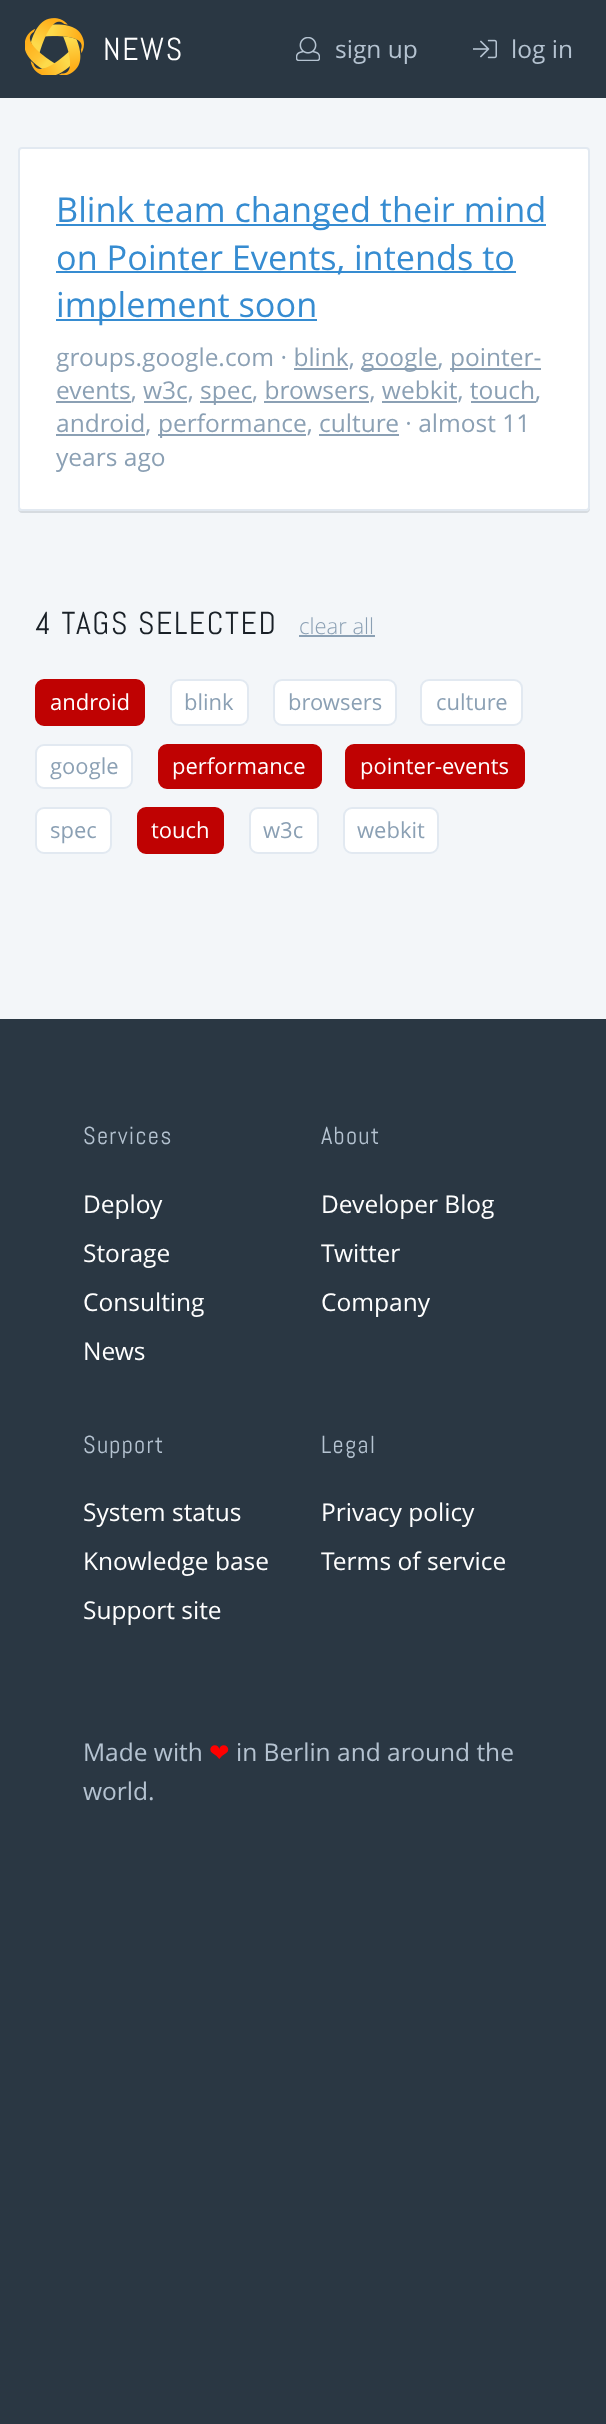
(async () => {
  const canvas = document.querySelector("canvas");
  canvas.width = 606;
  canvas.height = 2424;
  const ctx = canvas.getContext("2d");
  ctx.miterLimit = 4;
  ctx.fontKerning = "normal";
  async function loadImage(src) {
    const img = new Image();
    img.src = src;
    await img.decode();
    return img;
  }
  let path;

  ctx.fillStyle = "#2a3743";
  ctx.fillRect(0, 0, 606, 2424);
  ctx.drawImage(await loadImage("img/1.png"), 25, 18, 59, 57);
  ctx.drawImage(await loadImage("img/2.png"), 296, 37, 24, 24);
  ctx.drawImage(await loadImage("img/3.png"), 473, 39, 24, 20);
  ctx.fillStyle = "#f3f6f9";
  ctx.fillRect(0, 98, 606, 921);
  ctx.fillStyle = "#d6dbe0";
  path = new Path2D("M18 509C18 511 20 513 22 513H586C588 513 590 511 590 509V152V507C590 509 588 511 586 511H21C20 511 19 510 18 509Z");
  ctx.fill(path);
  ctx.fillStyle = "#ffffff";
  ctx.beginPath();
  ctx.roundRect(19, 148, 570, 362, 3);
  ctx.fill();
  ctx.strokeStyle = "#e2e9f1";
  ctx.lineWidth = 2;
  ctx.stroke();
  for (const [x, y, w, h, color] of [
    [56, 224, 490, 2, "#368cd1"],
    [56, 271, 460, 2, "#368cd1"],
    [56, 319, 261, 2, "#368cd1"],
    [361, 368, 77, 2, "#8ba0b4"],
    [450, 368, 91, 2, "#8ba0b4"],
    [294, 368, 54, 2, "#8ba0b4"],
    [56, 401, 75, 2, "#8ba0b4"],
    [200, 401, 52, 2, "#8ba0b4"],
    [144, 401, 43, 2, "#8ba0b4"],
    [264, 401, 105, 2, "#8ba0b4"],
    [382, 401, 75, 2, "#8ba0b4"],
    [471, 401, 65, 2, "#8ba0b4"],
    [56, 434, 89, 2, "#8ba0b4"],
    [158, 434, 148, 2, "#8ba0b4"],
    [319, 434, 80, 2, "#8ba0b4"],
    [299, 635, 76, 2, "#8ba0b4"],
  ]) {
    ctx.fillStyle = color;
    ctx.fillRect(x, y, w, h);
  }
  ctx.fillStyle = "#bf0202";
  ctx.beginPath();
  ctx.roundRect(36, 680, 108, 45, 8);
  ctx.fill();
  ctx.strokeStyle = "#bf0202";
  ctx.stroke();
  ctx.fillStyle = "#ffffff";
  ctx.beginPath();
  ctx.roundRect(171, 680, 77, 45, 8);
  ctx.fill();
  ctx.strokeStyle = "#e2e9f1";
  ctx.stroke();
  ctx.beginPath();
  ctx.roundRect(274, 680, 122, 45, 8);
  ctx.fill();
  ctx.stroke();
  ctx.beginPath();
  ctx.roundRect(421, 680, 101, 45, 8);
  ctx.fill();
  ctx.stroke();
  ctx.beginPath();
  ctx.roundRect(36, 745, 96, 43, 8);
  ctx.fill();
  ctx.stroke();
  ctx.fillStyle = "#bf0202";
  ctx.beginPath();
  ctx.roundRect(159, 745, 162, 43, 8);
  ctx.fill();
  ctx.strokeStyle = "#bf0202";
  ctx.stroke();
  ctx.beginPath();
  ctx.roundRect(346, 745, 178, 43, 8);
  ctx.fill();
  ctx.stroke();
  ctx.fillStyle = "#ffffff";
  ctx.beginPath();
  ctx.roundRect(36, 808, 75, 45, 8);
  ctx.fill();
  ctx.strokeStyle = "#e2e9f1";
  ctx.stroke();
  ctx.fillStyle = "#bf0202";
  ctx.beginPath();
  ctx.roundRect(138, 808, 85, 45, 8);
  ctx.fill();
  ctx.strokeStyle = "#bf0202";
  ctx.stroke();
  ctx.fillStyle = "#ffffff";
  ctx.beginPath();
  ctx.roundRect(250, 808, 68, 45, 8);
  ctx.fill();
  ctx.strokeStyle = "#e2e9f1";
  ctx.stroke();
  ctx.beginPath();
  ctx.roundRect(344, 808, 94, 45, 8);
  ctx.fill();
  ctx.stroke();
  ctx.letterSpacing = "1.6px";
  ctx.font = "31.75px Abel";
  ctx.fillText("NEWS", 103, 60);
  ctx.letterSpacing = "0px";
  ctx.font = "24.5px Open Sans";
  ctx.fillStyle = "#b5c3d1";
  ctx.fillText("sign up", 335, 58);
  ctx.fillText("log in", 511, 58);
  ctx.font = "34.25px Open Sans";
  ctx.fillStyle = "#368cd1";
  for (const [text, x, y] of [
    ["Blink team changed their mind", 56, 222],
    ["on Pointer Events, intends to", 56, 270],
    ["implement soon", 56, 317],
  ]) {
    ctx.fillText(text, x, y);
  }
  ctx.font = "24.5px Open Sans";
  ctx.fillStyle = "#8ba0b4";
  for (const [text, x, y] of [
    ["groups.google.com · blink,", 56, 366],
    ["google,", 361, 366],
    ["pointer-", 450, 366],
    ["events, w3c,", 56, 399],
    ["spec, browsers, webkit, touch", 200, 399],
    [",", 535, 399],
    ["android,", 56, 432],
    ["performance, culture · almost 11", 158, 432],
    ["years ago", 56, 466],
  ]) {
    ctx.fillText(text, x, y);
  }
  ctx.letterSpacing = "1.6px";
  ctx.font = "31.75px Abel";
  ctx.fillStyle = "#192027";
  ctx.fillText("4 TAGS SELECTED", 35, 634);
  ctx.letterSpacing = "0px";
  ctx.font = "300 22px Open Sans";
  ctx.fillStyle = "#8ba0b4";
  ctx.fillText("clear all", 299, 634);
  ctx.font = "22px Open Sans";
  ctx.fillStyle = "#ffffff";
  ctx.fillText("android", 50, 710);
  ctx.fillStyle = "#8ba0b4";
  for (const [text, x, y] of [
    ["blink", 184, 710],
    ["browsers", 288, 710],
    ["culture", 436, 710],
    ["google", 50, 774],
  ]) {
    ctx.fillText(text, x, y);
  }
  ctx.fillStyle = "#ffffff";
  ctx.fillText("performance", 172, 774);
  ctx.fillText("pointer-events", 360, 774);
  ctx.fillStyle = "#8ba0b4";
  ctx.fillText("spec", 50, 838);
  ctx.fillStyle = "#ffffff";
  ctx.fillText("touch", 151, 838);
  ctx.fillStyle = "#8ba0b4";
  ctx.fillText("w3c", 263, 838);
  ctx.fillText("webkit", 357, 838);
  ctx.letterSpacing = "1.25px";
  ctx.font = "24.5px Abel";
  ctx.fillStyle = "#b5c3d1";
  ctx.fillText("Services", 83, 1144);
  ctx.letterSpacing = "0px";
  ctx.font = "24.5px Open Sans";
  ctx.fillStyle = "#ffffff";
  for (const [text, x, y] of [
    ["Deploy", 83, 1213],
    ["Storage", 83, 1262],
    ["Consulting", 83, 1311],
    ["News", 83, 1360],
  ]) {
    ctx.fillText(text, x, y);
  }
  ctx.letterSpacing = "1.25px";
  ctx.font = "24.5px Abel";
  ctx.fillStyle = "#b5c3d1";
  ctx.fillText("About", 321, 1144);
  ctx.letterSpacing = "0px";
  ctx.font = "24.5px Open Sans";
  ctx.fillStyle = "#ffffff";
  for (const [text, x, y] of [
    ["Developer Blog", 321, 1213],
    ["Twitter", 321, 1262],
    ["Company", 321, 1311],
  ]) {
    ctx.fillText(text, x, y);
  }
  ctx.letterSpacing = "1.25px";
  ctx.font = "24.5px Abel";
  ctx.fillStyle = "#b5c3d1";
  ctx.fillText("Support", 83, 1453);
  ctx.letterSpacing = "0px";
  ctx.font = "24.5px Open Sans";
  ctx.fillStyle = "#ffffff";
  for (const [text, x, y] of [
    ["System status", 83, 1521],
    ["Knowledge base", 83, 1570],
    ["Support site", 83, 1619],
  ]) {
    ctx.fillText(text, x, y);
  }
  ctx.letterSpacing = "1.25px";
  ctx.font = "24.5px Abel";
  ctx.fillStyle = "#b5c3d1";
  ctx.fillText("Legal", 321, 1453);
  ctx.letterSpacing = "0px";
  ctx.font = "24.5px Open Sans";
  ctx.fillStyle = "#ffffff";
  ctx.fillText("Privacy policy", 321, 1521);
  ctx.fillText("Terms of service", 321, 1570);
  ctx.fillStyle = "#b5c3d1";
  ctx.fillText("Made with", 83, 1761);
  ctx.font = "24.5px DejaVu Sans";
  ctx.fillStyle = "#ff0000";
  ctx.fillText("❤", 209, 1761);
  ctx.font = "24.5px Open Sans";
  ctx.fillStyle = "#b5c3d1";
  ctx.fillText("in Berlin and around the", 236, 1761);
  ctx.fillText("world.", 83, 1800);
})();
